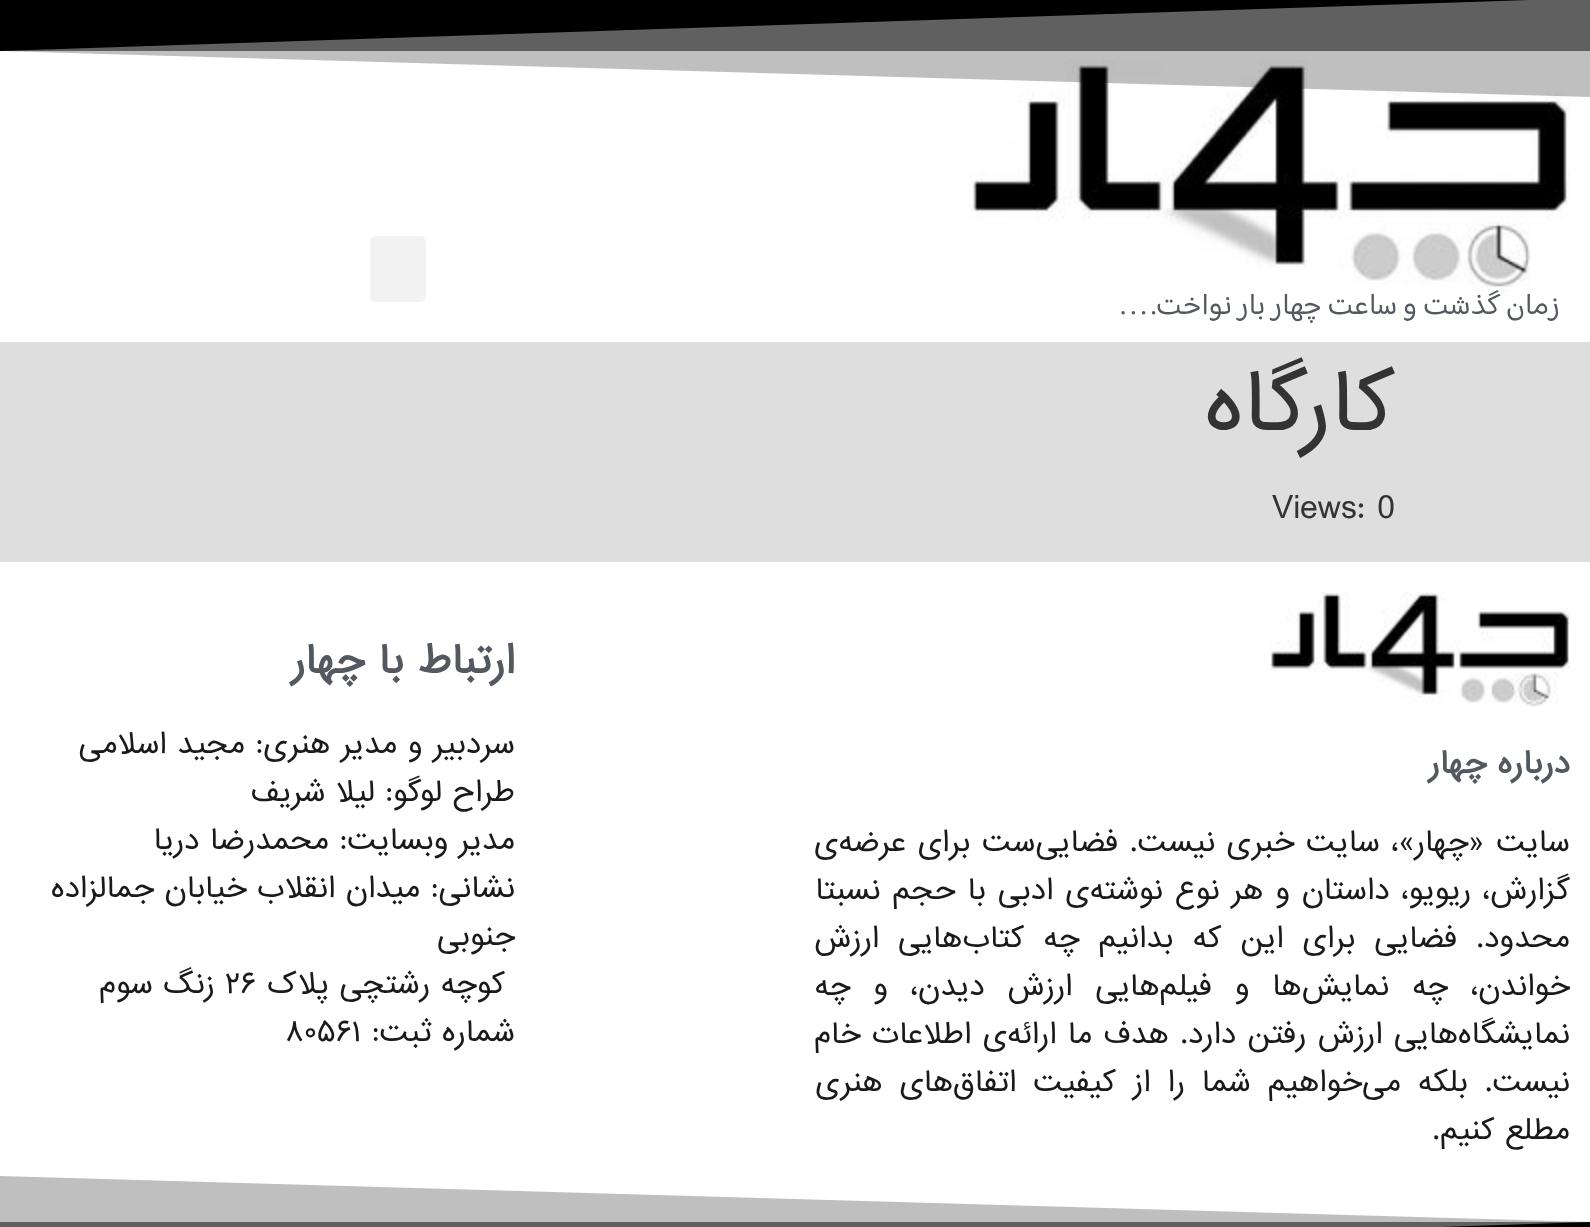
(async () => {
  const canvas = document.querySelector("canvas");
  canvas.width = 1590;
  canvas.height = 1227;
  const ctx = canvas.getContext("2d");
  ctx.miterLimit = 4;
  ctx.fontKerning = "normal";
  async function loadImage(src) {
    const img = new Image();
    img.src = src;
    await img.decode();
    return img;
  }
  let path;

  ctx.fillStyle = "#dedede";
  ctx.fillRect(0, 0, 1590, 1227);
  ctx.fillStyle = "#ffffff";
  ctx.fillRect(0, 51, 1590, 291);
  ctx.fillStyle = "#808080";
  ctx.fillRect(0, 0, 1590, 51);
  ctx.fillStyle = "#000000";
  path = new Path2D("M1590-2H-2V51Z");
  ctx.fill(path);
  ctx.drawImage(await loadImage("img/1.png"), 970, 60, 600, 232);
  ctx.fillStyle = "rgba(0, 0, 0, 0.25)";
  path = new Path2D("M-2-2H1590V97L-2 51Z");
  ctx.fill(path);
  ctx.fillStyle = "#f2f2f2";
  ctx.beginPath();
  ctx.roundRect(370, 236, 56, 66, 6);
  ctx.fill();
  ctx.fillStyle = "#ffffff";
  ctx.fillRect(0, 562, 1590, 660);
  ctx.fillStyle = "#808080";
  ctx.fillRect(0, 1222, 1590, 5);
  ctx.drawImage(await loadImage("img/2.png"), 1270, 592, 300, 115);
  ctx.fillStyle = "#000000";
  path = new Path2D("M0 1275H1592V1222Z");
  ctx.fill(path);
  ctx.fillStyle = "rgba(0, 0, 0, 0.25)";
  path = new Path2D("M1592 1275H0V1176L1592 1222Z");
  ctx.fill(path);
  ctx.direction = "rtl";
  ctx.font = "30px 'Baloo Bhaijaan 2'";
  ctx.fillStyle = "#54595f";
  ctx.fillText("زمان گذشت و ساعت چهار بار نواخت. . . .", 1560, 314);
  ctx.font = "80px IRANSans";
  ctx.fillStyle = "#333333";
  ctx.fillText("کارگاه", 1395, 430);
  ctx.direction = "ltr";
  ctx.font = "32px IRANSans";
  ctx.fillText("Views: 0", 1272, 518);
  ctx.direction = "rtl";
  ctx.font = "bold 30px IRANSans";
  ctx.fillStyle = "#54595f";
  ctx.fillText("درباره چهار", 1570, 773);
  ctx.wordSpacing = "1px";
  ctx.font = "28px IRANSans";
  ctx.fillStyle = "#1a1a1a";
  ctx.fillText("سایت «چهار»، سایت خبری نیست. فضایی‌ست برای عرضه‌ی", 1570, 851);
  ctx.wordSpacing = "1.25px";
  ctx.fillText("گزارش‌، ریویو، داستان و هر نوع نوشته‌ی ادبی با حجم نسبتا", 1570, 899);
  ctx.wordSpacing = "8.5px";
  ctx.fillText("محدود. فضایی برای این که بدانیم چه کتاب‌هایی ارزش", 1570, 947);
  ctx.wordSpacing = "12.25px";
  ctx.fillText("خواندن، چه نمایش‌ها و فیلم‌هایی ارزش دیدن، و چه", 1570, 995);
  ctx.wordSpacing = "0.75px";
  ctx.fillText("نمایشگاه‌هایی ارزش رفتن دارد. هدف ما ارائه‌ی اطلاعات خام", 1570, 1043);
  ctx.wordSpacing = "6.25px";
  ctx.fillText("نیست. بلکه می‌خواهیم شما را از کیفیت اتفاق‌های هنری", 1570, 1091);
  ctx.wordSpacing = "0px";
  ctx.fillText("مطلع کنیم.", 1570, 1139);
  ctx.font = "bold 38px IRANSans";
  ctx.fillStyle = "#54595f";
  ctx.fillText("ارتباط با چهار", 515, 673);
  ctx.font = "28px IRANSans";
  ctx.fillStyle = "#1a1a1a";
  for (const [text, x, y] of [
    ["سردبیر و مدیر هنری: مجید اسلامی", 515, 753],
    ["طراح لوگو: لیلا شریف", 515, 801],
    ["مدیر وبسایت:", 515, 849],
    ["محمدرضا دریا", 329, 849],
    ["نشانی: میدان انقلاب خیابان جمالزاده", 515, 897],
    ["جنوبی", 515, 945],
    ["کوچه رشتچی پلاک", 505, 993],
  ]) {
    ctx.fillText(text, x, y);
  }
  ctx.direction = "ltr";
  ctx.fillText("۲۶", 225, 993);
  ctx.direction = "rtl";
  ctx.fillText("زنگ سوم", 215, 993);
  ctx.fillText("شماره ثبت:", 515, 1041);
  ctx.direction = "ltr";
  ctx.fillText("۸۰۵۶۱", 285, 1041);
})();
